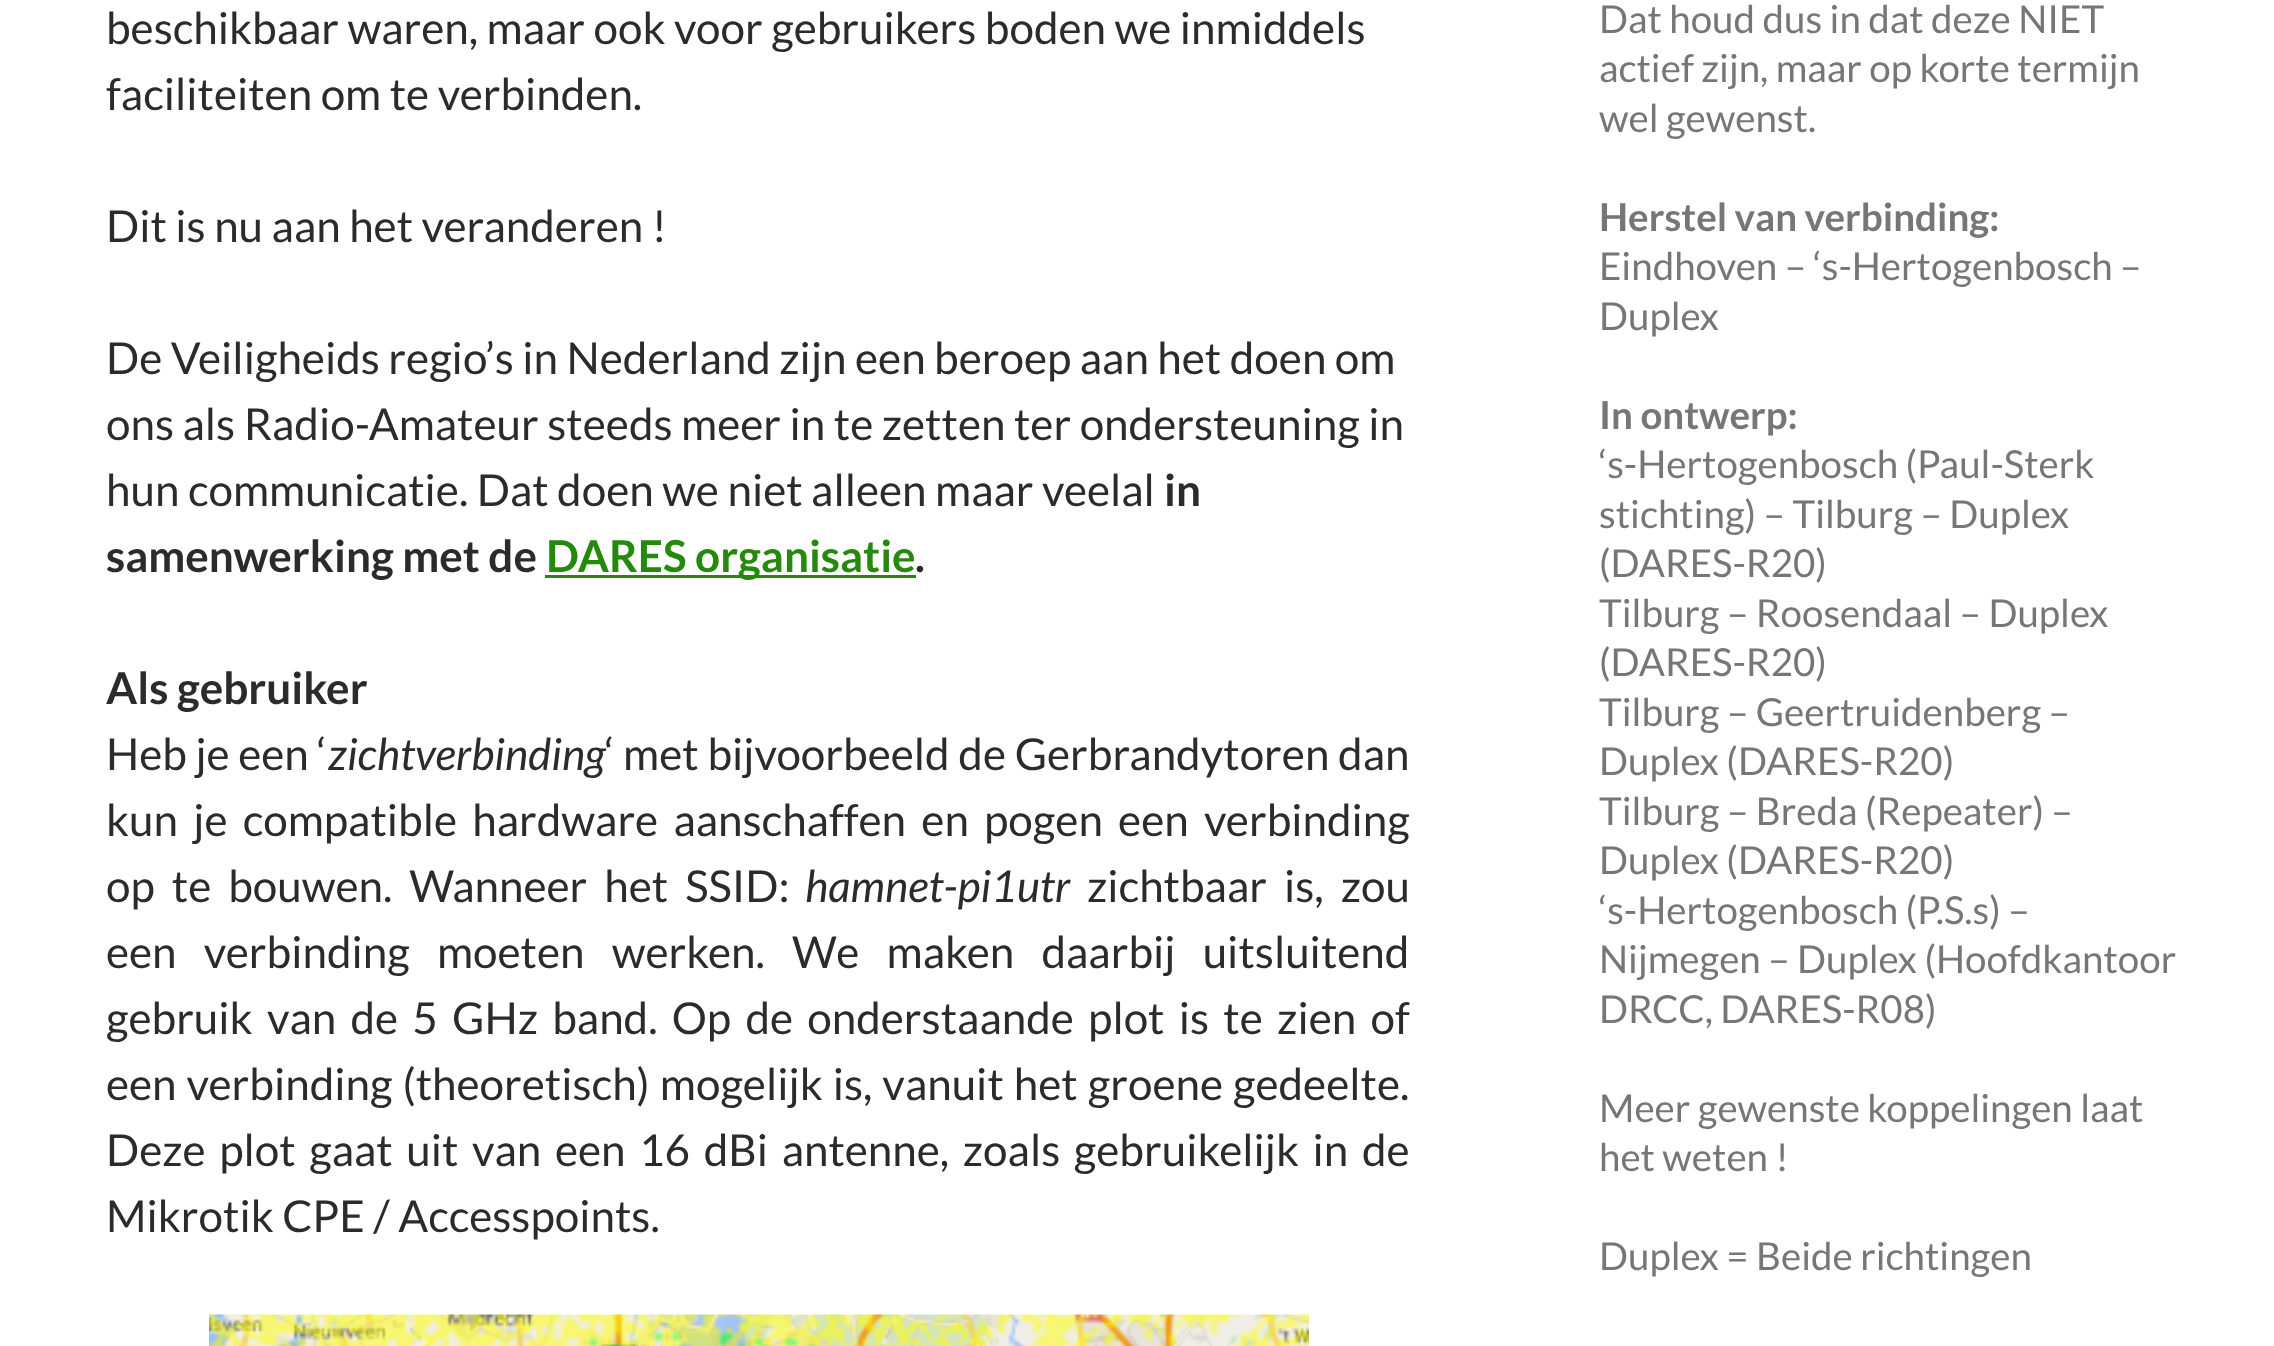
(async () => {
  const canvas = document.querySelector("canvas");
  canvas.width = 2274;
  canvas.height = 1346;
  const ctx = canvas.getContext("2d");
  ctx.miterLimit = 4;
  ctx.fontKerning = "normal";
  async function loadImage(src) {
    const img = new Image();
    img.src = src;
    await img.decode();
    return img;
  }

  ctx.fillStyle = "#ffffff";
  ctx.fillRect(0, 0, 2274, 1346);
  ctx.fillStyle = "#24890d";
  ctx.fillRect(545, 575, 371, 3);
  ctx.drawImage(await loadImage("img/1.png"), 209, 1314, 1100, 32);
  ctx.font = "44px Lato";
  ctx.fillStyle = "#2b2b2b";
  for (const [text, x, y] of [
    ["beschikbaar waren, maar ook voor gebruikers boden we inmiddels", 106, 44],
    ["faciliteiten om te verbinden.", 106, 110],
    ["Dit is nu aan het veranderen !", 106, 242],
    ["De Veiligheids regio’s in Nederland zijn een beroep aan het doen om", 106, 374],
    ["ons als Radio-Amateur steeds meer in te zetten ter ondersteuning in", 106, 440],
    ["hun communicatie. Dat doen we niet alleen maar veelal", 106, 506],
  ]) {
    ctx.fillText(text, x, y);
  }
  ctx.font = "bold 44px Lato";
  ctx.fillText("in", 1164, 506);
  ctx.fillText("samenwerking met de", 106, 572);
  ctx.fillStyle = "#24890d";
  ctx.fillText("DARES organisatie", 546, 572);
  ctx.fillStyle = "#2b2b2b";
  ctx.fillText(".", 915, 572);
  ctx.fillText("Als gebruiker", 106, 704);
  ctx.font = "44px Lato";
  ctx.fillText("Heb je een ‘", 106, 770);
  ctx.font = "italic 44px Lato";
  ctx.fillText("zichtverbinding", 328, 770);
  ctx.wordSpacing = "0.25px";
  ctx.font = "44px Lato";
  ctx.fillText("‘ met bijvoorbeeld de Gerbrandytoren dan", 605, 770);
  ctx.wordSpacing = "6.75px";
  ctx.fillText("kun je compatible hardware aanschaffen en pogen een verbinding", 106, 836);
  ctx.wordSpacing = "8.5px";
  ctx.fillText("op te bouwen. Wanneer het SSID:", 106, 902);
  ctx.wordSpacing = "0px";
  ctx.font = "italic 44px Lato";
  ctx.fillText("hamnet-pi1utr", 805, 902);
  ctx.wordSpacing = "8.5px";
  ctx.font = "44px Lato";
  ctx.fillText("zichtbaar is, zou", 1087, 902);
  ctx.wordSpacing = "18.75px";
  ctx.fillText("een verbinding moeten werken. We maken daarbij uitsluitend", 106, 968);
  ctx.wordSpacing = "5.75px";
  ctx.fillText("gebruik van de 5 GHz band. Op de onderstaande plot is te zien of", 106, 1034);
  ctx.wordSpacing = "1.5px";
  ctx.fillText("een verbinding (theoretisch) mogelijk is, vanuit het groene gedeelte.", 106, 1100);
  ctx.wordSpacing = "5.1px";
  ctx.fillText("Deze plot gaat uit van een 16 dBi antenne, zoals gebruikelijk in de", 106, 1166);
  ctx.wordSpacing = "0px";
  ctx.fillText("Mikrotik CPE / Accesspoints.", 106, 1232);
  ctx.font = "38.5px Lato";
  ctx.fillStyle = "#767676";
  for (const [text, x, y] of [
    ["Dat houd dus in dat deze NIET", 1599, 33],
    ["actief zijn, maar op korte termijn", 1599, 82],
    ["wel gewenst.", 1599, 132],
  ]) {
    ctx.fillText(text, x, y);
  }
  ctx.font = "bold 38.5px Lato";
  ctx.fillText("Herstel van verbinding:", 1599, 231);
  ctx.font = "38.5px Lato";
  ctx.fillText("Eindhoven – ‘s-Hertogenbosch –", 1599, 280);
  ctx.fillText("Duplex", 1599, 330);
  ctx.font = "bold 38.5px Lato";
  ctx.fillText("In ontwerp:", 1599, 429);
  ctx.font = "38.5px Lato";
  for (const [text, x, y] of [
    ["‘s-Hertogenbosch (Paul-Sterk", 1599, 478],
    ["stichting) – Tilburg – Duplex", 1599, 528],
    ["(DARES-R20)", 1599, 577],
    ["Tilburg – Roosendaal – Duplex", 1599, 627],
    ["(DARES-R20)", 1599, 676],
    ["Tilburg – Geertruidenberg –", 1599, 726],
    ["Duplex (DARES-R20)", 1599, 775],
    ["Tilburg – Breda (Repeater) –", 1599, 825],
    ["Duplex (DARES-R20)", 1599, 874],
    ["‘s-Hertogenbosch (P.S.s) –", 1599, 924],
    ["Nijmegen – Duplex (Hoofdkantoor", 1599, 973],
    ["DRCC, DARES-R08)", 1599, 1023],
    ["Meer gewenste koppelingen laat", 1599, 1122],
    ["het weten !", 1599, 1171],
    ["Duplex = Beide richtingen", 1599, 1270],
  ]) {
    ctx.fillText(text, x, y);
  }
})();
